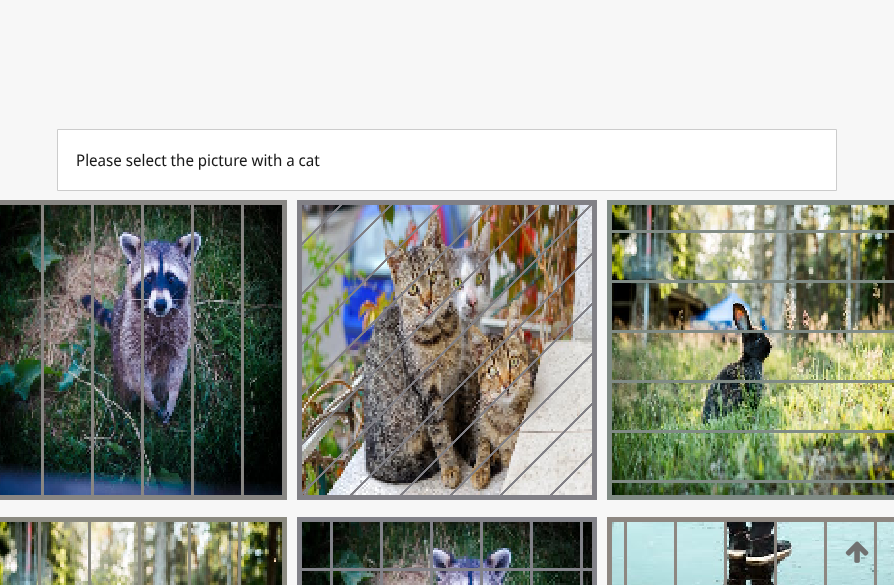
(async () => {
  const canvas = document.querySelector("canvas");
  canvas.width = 894;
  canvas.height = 585;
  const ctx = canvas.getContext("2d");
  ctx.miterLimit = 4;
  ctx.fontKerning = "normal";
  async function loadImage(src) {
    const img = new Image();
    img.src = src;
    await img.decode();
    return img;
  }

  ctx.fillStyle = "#f7f7f7";
  ctx.fillRect(0, 0, 894, 585);
  ctx.fillStyle = "#ffffff";
  ctx.beginPath();
  ctx.rect(57.5, 129.5, 779, 61);
  ctx.fill();
  ctx.strokeStyle = "#cccccc";
  ctx.stroke();
  ctx.drawImage(await loadImage("img/1.png"), 0, 200, 287, 300);
  ctx.drawImage(await loadImage("img/2.png"), 297, 200, 300, 300);
  ctx.drawImage(await loadImage("img/3.png"), 607, 200, 287, 300);
  ctx.drawImage(await loadImage("img/4.png"), 0, 517, 287, 68);
  ctx.drawImage(await loadImage("img/5.png"), 297, 517, 300, 68);
  ctx.drawImage(await loadImage("img/6.png"), 607, 517, 287, 68);
  ctx.drawImage(await loadImage("img/7.png"), 845, 541, 24, 22);
  ctx.font = "16px Noto Sans Display";
  ctx.fillStyle = "#1a1a1a";
  ctx.fillText("Please select the picture with a cat", 76, 166);
})();
